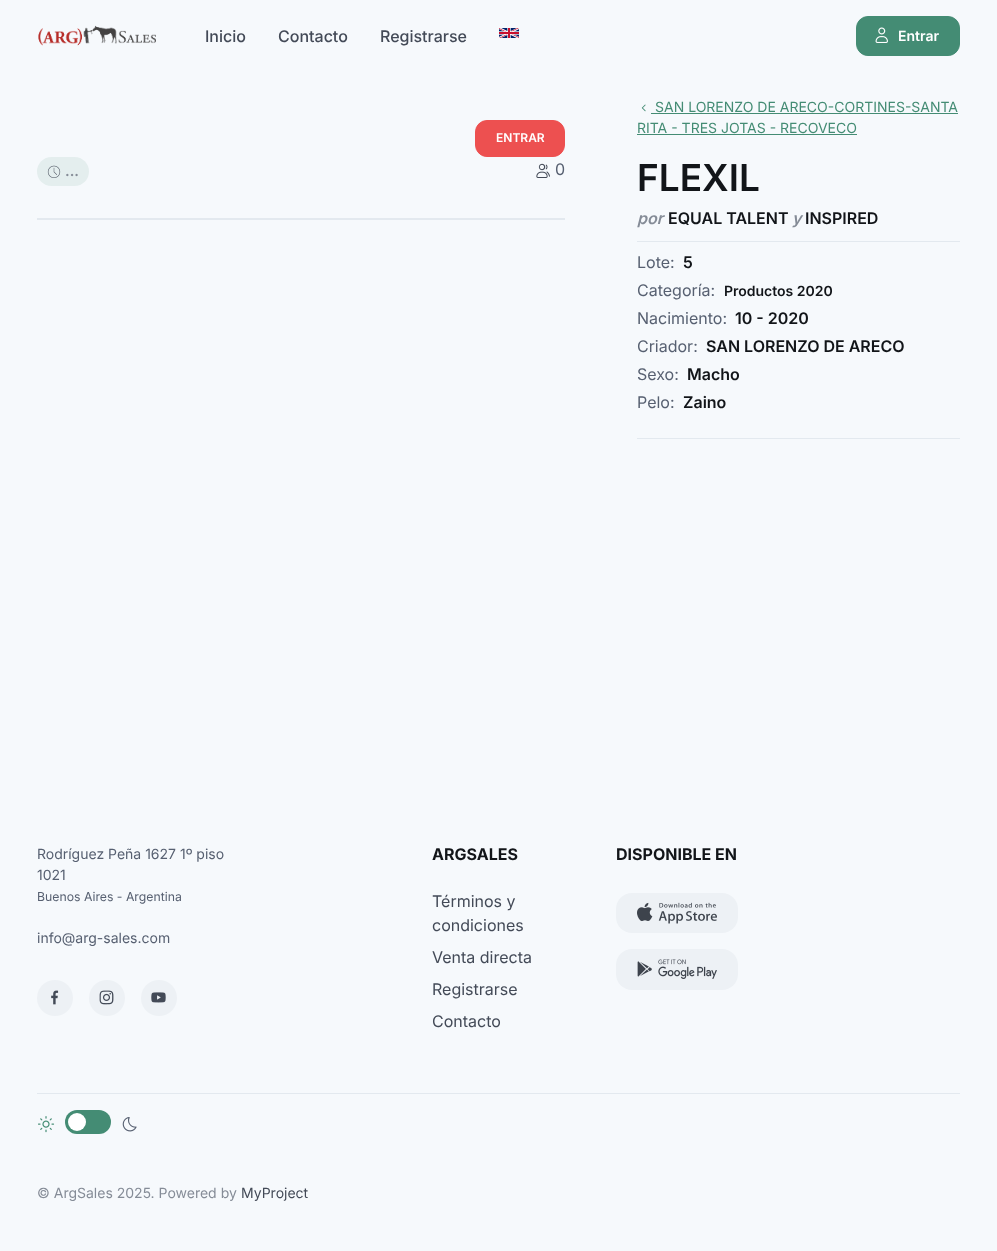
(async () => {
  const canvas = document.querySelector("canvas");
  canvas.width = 997;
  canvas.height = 1251;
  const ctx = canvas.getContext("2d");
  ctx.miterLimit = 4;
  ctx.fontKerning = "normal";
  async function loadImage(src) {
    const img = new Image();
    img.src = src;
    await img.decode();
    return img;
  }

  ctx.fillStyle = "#f6f9fc";
  ctx.fillRect(0, 0, 997, 1251);
  ctx.drawImage(await loadImage("img/1.png"), 38, 25, 118, 21);
  ctx.drawImage(await loadImage("img/2.png"), 499, 28, 20, 10);
  ctx.fillStyle = "#448c74";
  ctx.beginPath();
  ctx.roundRect(856.5, 16.5, 103, 39, 11.5);
  ctx.fill();
  ctx.strokeStyle = "#448c74";
  ctx.stroke();
  ctx.drawImage(await loadImage("img/3.png"), 875, 27, 13, 16);
  ctx.fillStyle = "#ed5050";
  ctx.beginPath();
  ctx.roundRect(475.5, 120.5, 89, 36, 11.5);
  ctx.fill();
  ctx.strokeStyle = "#ed5050";
  ctx.stroke();
  ctx.fillStyle = "#e4eeee";
  ctx.beginPath();
  ctx.roundRect(37, 157, 52, 29, 14.5);
  ctx.fill();
  ctx.drawImage(await loadImage("img/4.png"), 47, 165, 14, 13);
  ctx.drawImage(await loadImage("img/5.png"), 536, 163, 14, 15);
  ctx.fillStyle = "#e3e9ef";
  ctx.fillRect(37, 218, 528, 2);
  ctx.drawImage(await loadImage("img/6.png"), 641, 104, 5, 8);
  for (const [x, y, w, h, color] of [
    [651, 113, 307, 1, "#448c74"],
    [637, 134, 220, 1, "#448c74"],
    [637, 241, 323, 1, "#e3e9ef"],
    [637, 438, 323, 1, "#e3e9ef"],
  ]) {
    ctx.fillStyle = color;
    ctx.fillRect(x, y, w, h);
  }
  ctx.fillStyle = "#edf1f5";
  ctx.beginPath();
  ctx.arc(55, 998, 18, 0, Math.PI * 2);
  ctx.fill();
  ctx.drawImage(await loadImage("img/7.png"), 51, 990, 8, 15);
  ctx.beginPath();
  ctx.arc(107, 998, 18, 0, Math.PI * 2);
  ctx.fill();
  ctx.drawImage(await loadImage("img/8.png"), 99, 990, 15, 15);
  ctx.beginPath();
  ctx.arc(159, 998, 18, 0, Math.PI * 2);
  ctx.fill();
  ctx.drawImage(await loadImage("img/9.png"), 151, 992, 15, 11);
  ctx.beginPath();
  ctx.roundRect(616, 893, 122, 40, 16);
  ctx.fill();
  ctx.drawImage(await loadImage("img/10.png"), 637, 902, 80, 22);
  ctx.beginPath();
  ctx.roundRect(616, 949, 122, 41, 16);
  ctx.fill();
  ctx.drawImage(await loadImage("img/11.png"), 637, 959, 80, 20);
  ctx.fillStyle = "#e3e9ef";
  ctx.fillRect(37, 1093, 923, 1);
  ctx.drawImage(await loadImage("img/12.png"), 38, 1116, 17, 17);
  ctx.fillStyle = "#448c74";
  ctx.beginPath();
  ctx.roundRect(65, 1110, 46, 24, 12);
  ctx.fill();
  ctx.fillStyle = "#ffffff";
  ctx.beginPath();
  ctx.arc(77, 1122, 9, 0, Math.PI * 2);
  ctx.fill();
  ctx.drawImage(await loadImage("img/13.png"), 122, 1117, 15, 15);
  ctx.font = "500 16px Inter";
  ctx.fillStyle = "#434a57";
  for (const [text, x, y] of [
    ["Inicio", 205, 42],
    ["Contacto", 278, 42],
    ["Registrarse", 380, 42],
  ]) {
    ctx.fillText(text, x, y);
  }
  ctx.font = "600 14px Inter";
  ctx.fillStyle = "#ffffff";
  ctx.fillText("Entrar", 898, 41);
  ctx.font = "600 12px Inter";
  ctx.fillText("ENTRAR", 496, 142);
  ctx.font = "bold 14px Inter";
  ctx.fillStyle = "#858c97";
  ctx.fillText("...", 65, 176);
  ctx.font = "16px Inter";
  ctx.fillStyle = "#576071";
  ctx.fillText("0", 555, 175);
  ctx.font = "14px Inter";
  ctx.fillStyle = "#448c74";
  ctx.fillText("SAN LORENZO DE ARECO-CORTINES-SANTA", 655, 112);
  ctx.fillText("RITA - TRES JOTAS - RECOVECO", 637, 133);
  ctx.font = "600 37px Inter";
  ctx.fillStyle = "#121519";
  ctx.fillText("FLEXIL", 637, 191);
  ctx.font = "italic 600 16px Inter";
  ctx.fillStyle = "#858c97";
  ctx.fillText("por", 637, 224);
  ctx.font = "600 16px Inter";
  ctx.fillStyle = "#121519";
  ctx.fillText("EQUAL TALENT", 668, 224);
  ctx.font = "italic 600 16px Inter";
  ctx.fillStyle = "#858c97";
  ctx.fillText("y", 792, 224);
  ctx.font = "600 16px Inter";
  ctx.fillStyle = "#121519";
  ctx.fillText("INSPIRED", 805, 224);
  ctx.font = "16px Inter";
  ctx.fillStyle = "#576071";
  ctx.fillText("Lote:", 637, 268);
  ctx.font = "600 16px Inter";
  ctx.fillStyle = "#121519";
  ctx.fillText("5", 683, 268);
  ctx.font = "16px Inter";
  ctx.fillStyle = "#576071";
  ctx.fillText("Categoría:", 637, 296);
  ctx.font = "600 14px Inter";
  ctx.fillStyle = "#121519";
  ctx.fillText("Productos 2020", 724, 296);
  ctx.font = "16px Inter";
  ctx.fillStyle = "#576071";
  ctx.fillText("Nacimiento:", 637, 324);
  ctx.font = "600 16px Inter";
  ctx.fillStyle = "#121519";
  ctx.fillText("10 - 2020", 735, 324);
  ctx.font = "16px Inter";
  ctx.fillStyle = "#576071";
  ctx.fillText("Criador:", 637, 352);
  ctx.font = "600 16px Inter";
  ctx.fillStyle = "#121519";
  ctx.fillText("SAN LORENZO DE ARECO", 706, 352);
  ctx.font = "16px Inter";
  ctx.fillStyle = "#576071";
  ctx.fillText("Sexo:", 637, 380);
  ctx.font = "600 16px Inter";
  ctx.fillStyle = "#121519";
  ctx.fillText("Macho", 687, 380);
  ctx.font = "16px Inter";
  ctx.fillStyle = "#576071";
  ctx.fillText("Pelo:", 637, 408);
  ctx.font = "600 16px Inter";
  ctx.fillStyle = "#121519";
  ctx.fillText("Zaino", 683, 408);
  ctx.font = "14px Inter";
  ctx.fillStyle = "#576071";
  ctx.fillText("Rodríguez Peña 1627 1º piso", 37, 859);
  ctx.fillText("1021", 37, 880);
  ctx.font = "12.25px Inter";
  ctx.fillText("Buenos Aires - Argentina", 37, 901);
  ctx.font = "14px Inter";
  ctx.fillText("info@arg-sales.com", 37, 943);
  ctx.font = "bold 16px Inter";
  ctx.fillStyle = "#121519";
  ctx.fillText("ARGSALES", 432, 860);
  ctx.font = "16px Inter";
  ctx.fillStyle = "#434a57";
  for (const [text, x, y] of [
    ["Términos y", 432, 907],
    ["condiciones", 432, 931],
    ["Venta directa", 432, 963],
    ["Registrarse", 432, 995],
    ["Contacto", 432, 1027],
  ]) {
    ctx.fillText(text, x, y);
  }
  ctx.font = "bold 16px Inter";
  ctx.fillStyle = "#121519";
  ctx.fillText("DISPONIBLE EN", 616, 860);
  ctx.font = "14px Inter";
  ctx.fillStyle = "#858c97";
  ctx.fillText("© ArgSales 2025. Powered by", 37, 1198);
  ctx.fillStyle = "#434a57";
  ctx.fillText("MyProject", 241, 1198);
})();
